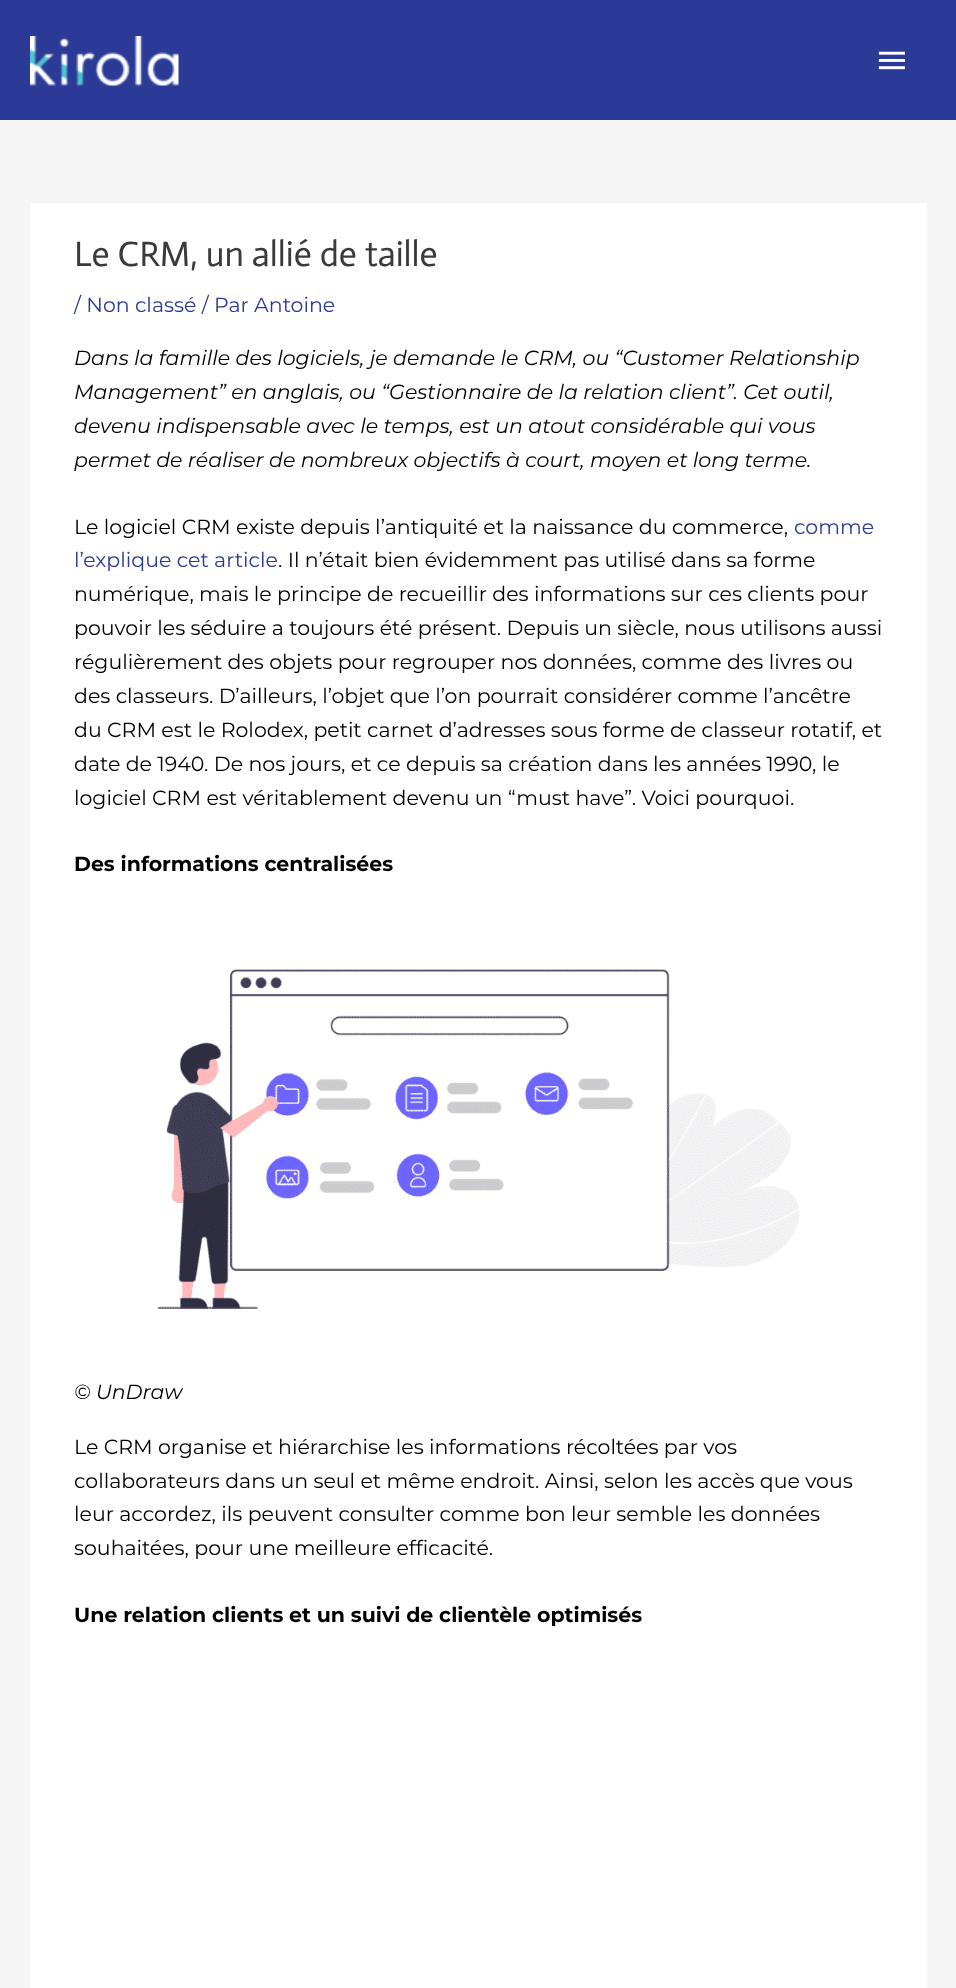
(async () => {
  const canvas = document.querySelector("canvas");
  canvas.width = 956;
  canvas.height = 1988;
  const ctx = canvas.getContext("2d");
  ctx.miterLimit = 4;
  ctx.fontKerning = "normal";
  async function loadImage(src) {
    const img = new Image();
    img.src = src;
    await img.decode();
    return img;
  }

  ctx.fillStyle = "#f5f5f5";
  ctx.fillRect(0, 0, 956, 1988);
  ctx.fillStyle = "#2a3a96";
  ctx.fillRect(0, 0, 956, 120);
  ctx.drawImage(await loadImage("img/1.png"), 30, 36, 149, 50);
  ctx.drawImage(await loadImage("img/2.png"), 878, 51, 28, 19);
  ctx.fillStyle = "#ffffff";
  ctx.fillRect(30, 203, 897, 1785);
  ctx.drawImage(await loadImage("img/3.png"), 157, 969, 643, 341);
  ctx.font = "35.5px Actor";
  ctx.fillStyle = "#3a3a3a";
  ctx.fillText("Le CRM, un allié de taille", 74, 266);
  ctx.font = "20.5px Montserrat";
  ctx.fillStyle = "#2a3a96";
  ctx.fillText("/ Non classé / Par Antoine", 74, 312);
  ctx.font = "italic 20.5px Montserrat";
  ctx.fillStyle = "#000000";
  for (const [text, x, y] of [
    ["Dans la famille des logiciels, je demande le CRM, ou “Customer Relationship", 74, 365],
    ["Management” en anglais, ou “Gestionnaire de la relation client”. Cet outil,", 74, 399],
    ["devenu indispensable avec le temps, est un atout considérable qui vous", 74, 433],
    ["permet de réaliser de nombreux objectifs à court, moyen et long terme.", 74, 467],
  ]) {
    ctx.fillText(text, x, y);
  }
  ctx.font = "20.5px Montserrat";
  ctx.fillText("Le logiciel CRM existe depuis l’antiquité et la naissance du commerce,", 74, 534);
  ctx.fillStyle = "#2a3a96";
  ctx.fillText("comme", 794, 534);
  ctx.fillText("l’explique cet article", 74, 567);
  ctx.fillStyle = "#000000";
  for (const [text, x, y] of [
    [". Il n’était bien évidemment pas utilisé dans sa forme", 278, 567],
    ["numérique, mais le principe de recueillir des informations sur ces clients pour", 74, 601],
    ["pouvoir les séduire a toujours été présent. Depuis un siècle, nous utilisons aussi", 74, 635],
    ["régulièrement des objets pour regrouper nos données, comme des livres ou", 74, 669],
    ["des classeurs. D’ailleurs, l’objet que l’on pourrait considérer comme l’ancêtre", 74, 703],
    ["du CRM est le Rolodex, petit carnet d’adresses sous forme de classeur rotatif, et", 74, 737],
    ["date de 1940. De nos jours, et ce depuis sa création dans les années 1990, le", 74, 771],
    ["logiciel CRM est véritablement devenu un “must have”. Voici pourquoi.", 74, 805],
  ]) {
    ctx.fillText(text, x, y);
  }
  ctx.font = "bold 20.5px Montserrat";
  ctx.fillText("Des informations centralisées", 74, 871);
  ctx.font = "italic 20.5px Montserrat";
  ctx.fillText("© UnDraw", 74, 1399);
  ctx.font = "20.5px Montserrat";
  for (const [text, x, y] of [
    ["Le CRM organise et hiérarchise les informations récoltées par vos", 74, 1454],
    ["collaborateurs dans un seul et même endroit. Ainsi, selon les accès que vous", 74, 1488],
    ["leur accordez, ils peuvent consulter comme bon leur semble les données", 74, 1521],
    ["souhaitées, pour une meilleure efficacité.", 74, 1555],
  ]) {
    ctx.fillText(text, x, y);
  }
  ctx.font = "bold 20.5px Montserrat";
  ctx.fillText("Une relation clients et un suivi de clientèle optimisés", 74, 1622);
})();
